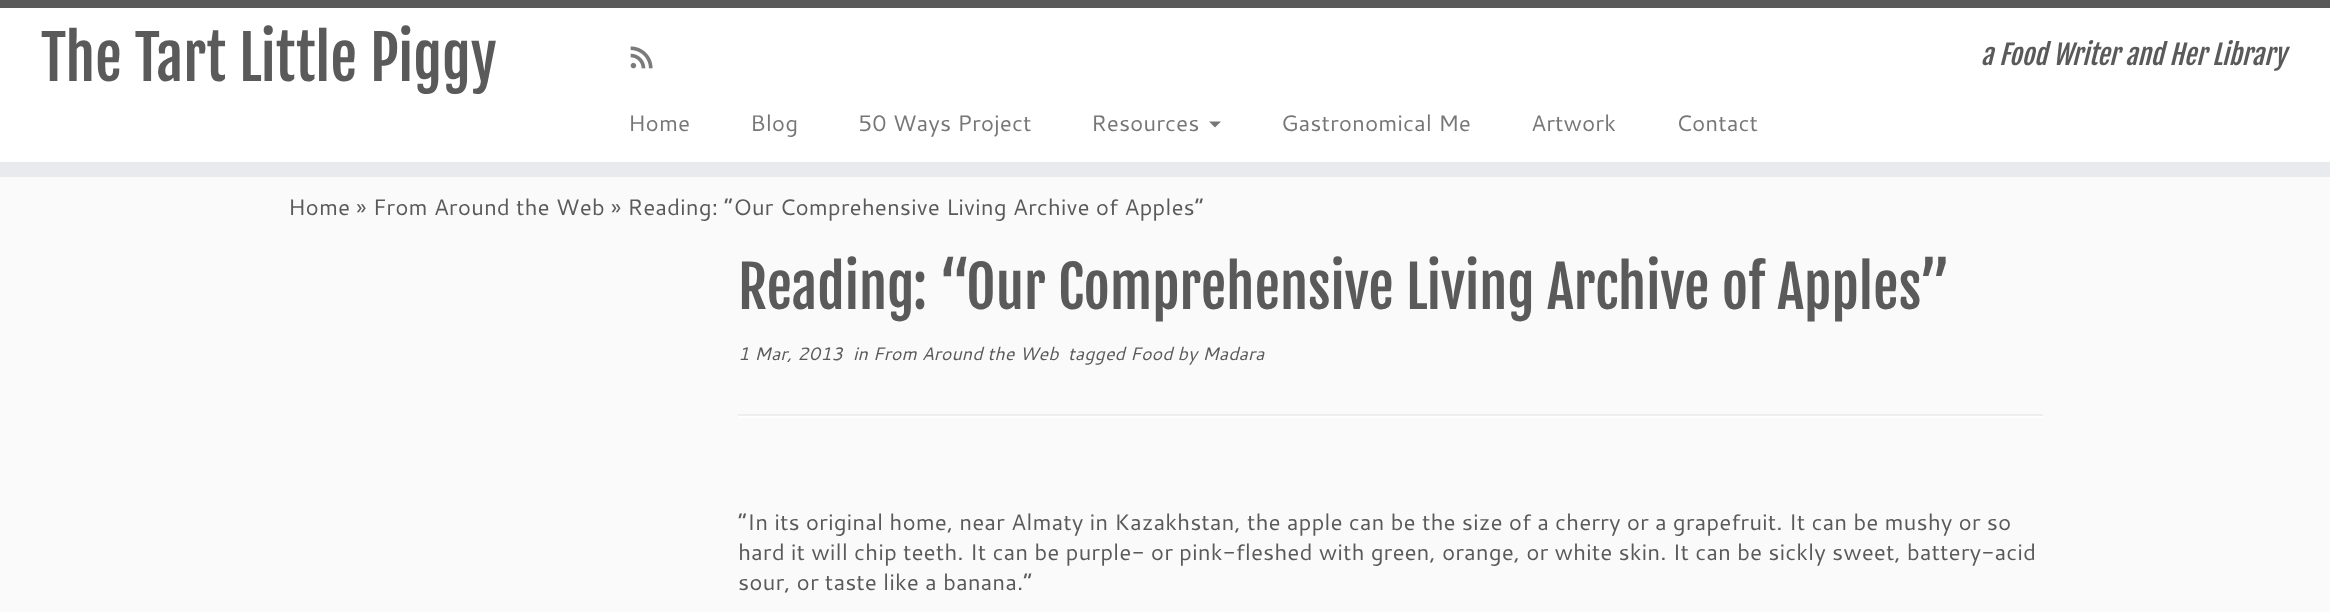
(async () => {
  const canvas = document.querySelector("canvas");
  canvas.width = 2330;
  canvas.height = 612;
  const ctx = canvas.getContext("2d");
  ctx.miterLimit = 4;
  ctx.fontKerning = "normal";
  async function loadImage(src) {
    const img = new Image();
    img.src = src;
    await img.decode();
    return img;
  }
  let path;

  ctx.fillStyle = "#fafafa";
  ctx.fillRect(0, 0, 2330, 612);
  for (const [x, y, w, h, color] of [
    [0, 8, 2330, 154, "#ffffff"],
    [0, 0, 2330, 8, "#5a5a5a"],
    [0, 162, 2330, 15, "#e9eaee"],
  ]) {
    ctx.fillStyle = color;
    ctx.fillRect(x, y, w, h);
  }
  ctx.drawImage(await loadImage("img/1.png"), 630, 46, 23, 23);
  ctx.fillStyle = "#777777";
  path = new Path2D("M1209 121.5H1221L1215 127.5Z");
  ctx.fill(path);
  ctx.fillStyle = "#eeeeee";
  ctx.fillRect(738, 414, 1305, 2);
  ctx.fillStyle = "#ffffff";
  ctx.fillRect(738, 416, 1305, 2);
  ctx.font = "60px Fjalla One";
  ctx.fillStyle = "#5a5a5a";
  ctx.fillText("The Tart Little Piggy", 41, 81);
  ctx.font = "italic 27px Fjalla One";
  ctx.fillText("a Food Writer and Her Library", 1981, 65);
  ctx.font = "22.5px Cantarell";
  ctx.fillStyle = "#777777";
  for (const [text, x, y] of [
    ["Home", 628, 131],
    ["Blog", 750, 131],
    ["50 Ways Project", 858, 131],
    ["Resources", 1091, 131],
    ["Gastronomical Me", 1281, 131],
    ["Artwork", 1531, 131],
    ["Contact", 1676, 131],
  ]) {
    ctx.fillText(text, x, y);
  }
  ctx.fillStyle = "#5a5a5a";
  ctx.fillText("Home » From Around the Web » Reading: “Our Comprehensive Living Archive of Apples”", 288, 215);
  ctx.font = "57px Fjalla One";
  ctx.fillText("Reading: “Our Comprehensive Living Archive of Apples”", 738, 309);
  ctx.font = "italic 18px Cantarell";
  for (const [text, x, y] of [
    ["1 Mar, 2013", 738, 360],
    ["in From Around the Web", 853, 360],
    ["tagged Food by Madara", 1068, 360],
  ]) {
    ctx.fillText(text, x, y);
  }
  ctx.font = "22.5px Cantarell";
  for (const [text, x, y] of [
    ["“In its original home, near Almaty in Kazakhstan, the apple can be the size of a cherry or a grapefruit. It can be mushy or so", 738, 530],
    ["hard it will chip teeth. It can be purple- or pink-fleshed with green, orange, or white skin. It can be sickly sweet, battery-acid", 738, 560],
    ["sour, or taste like a banana.”", 738, 590],
  ]) {
    ctx.fillText(text, x, y);
  }
})();
